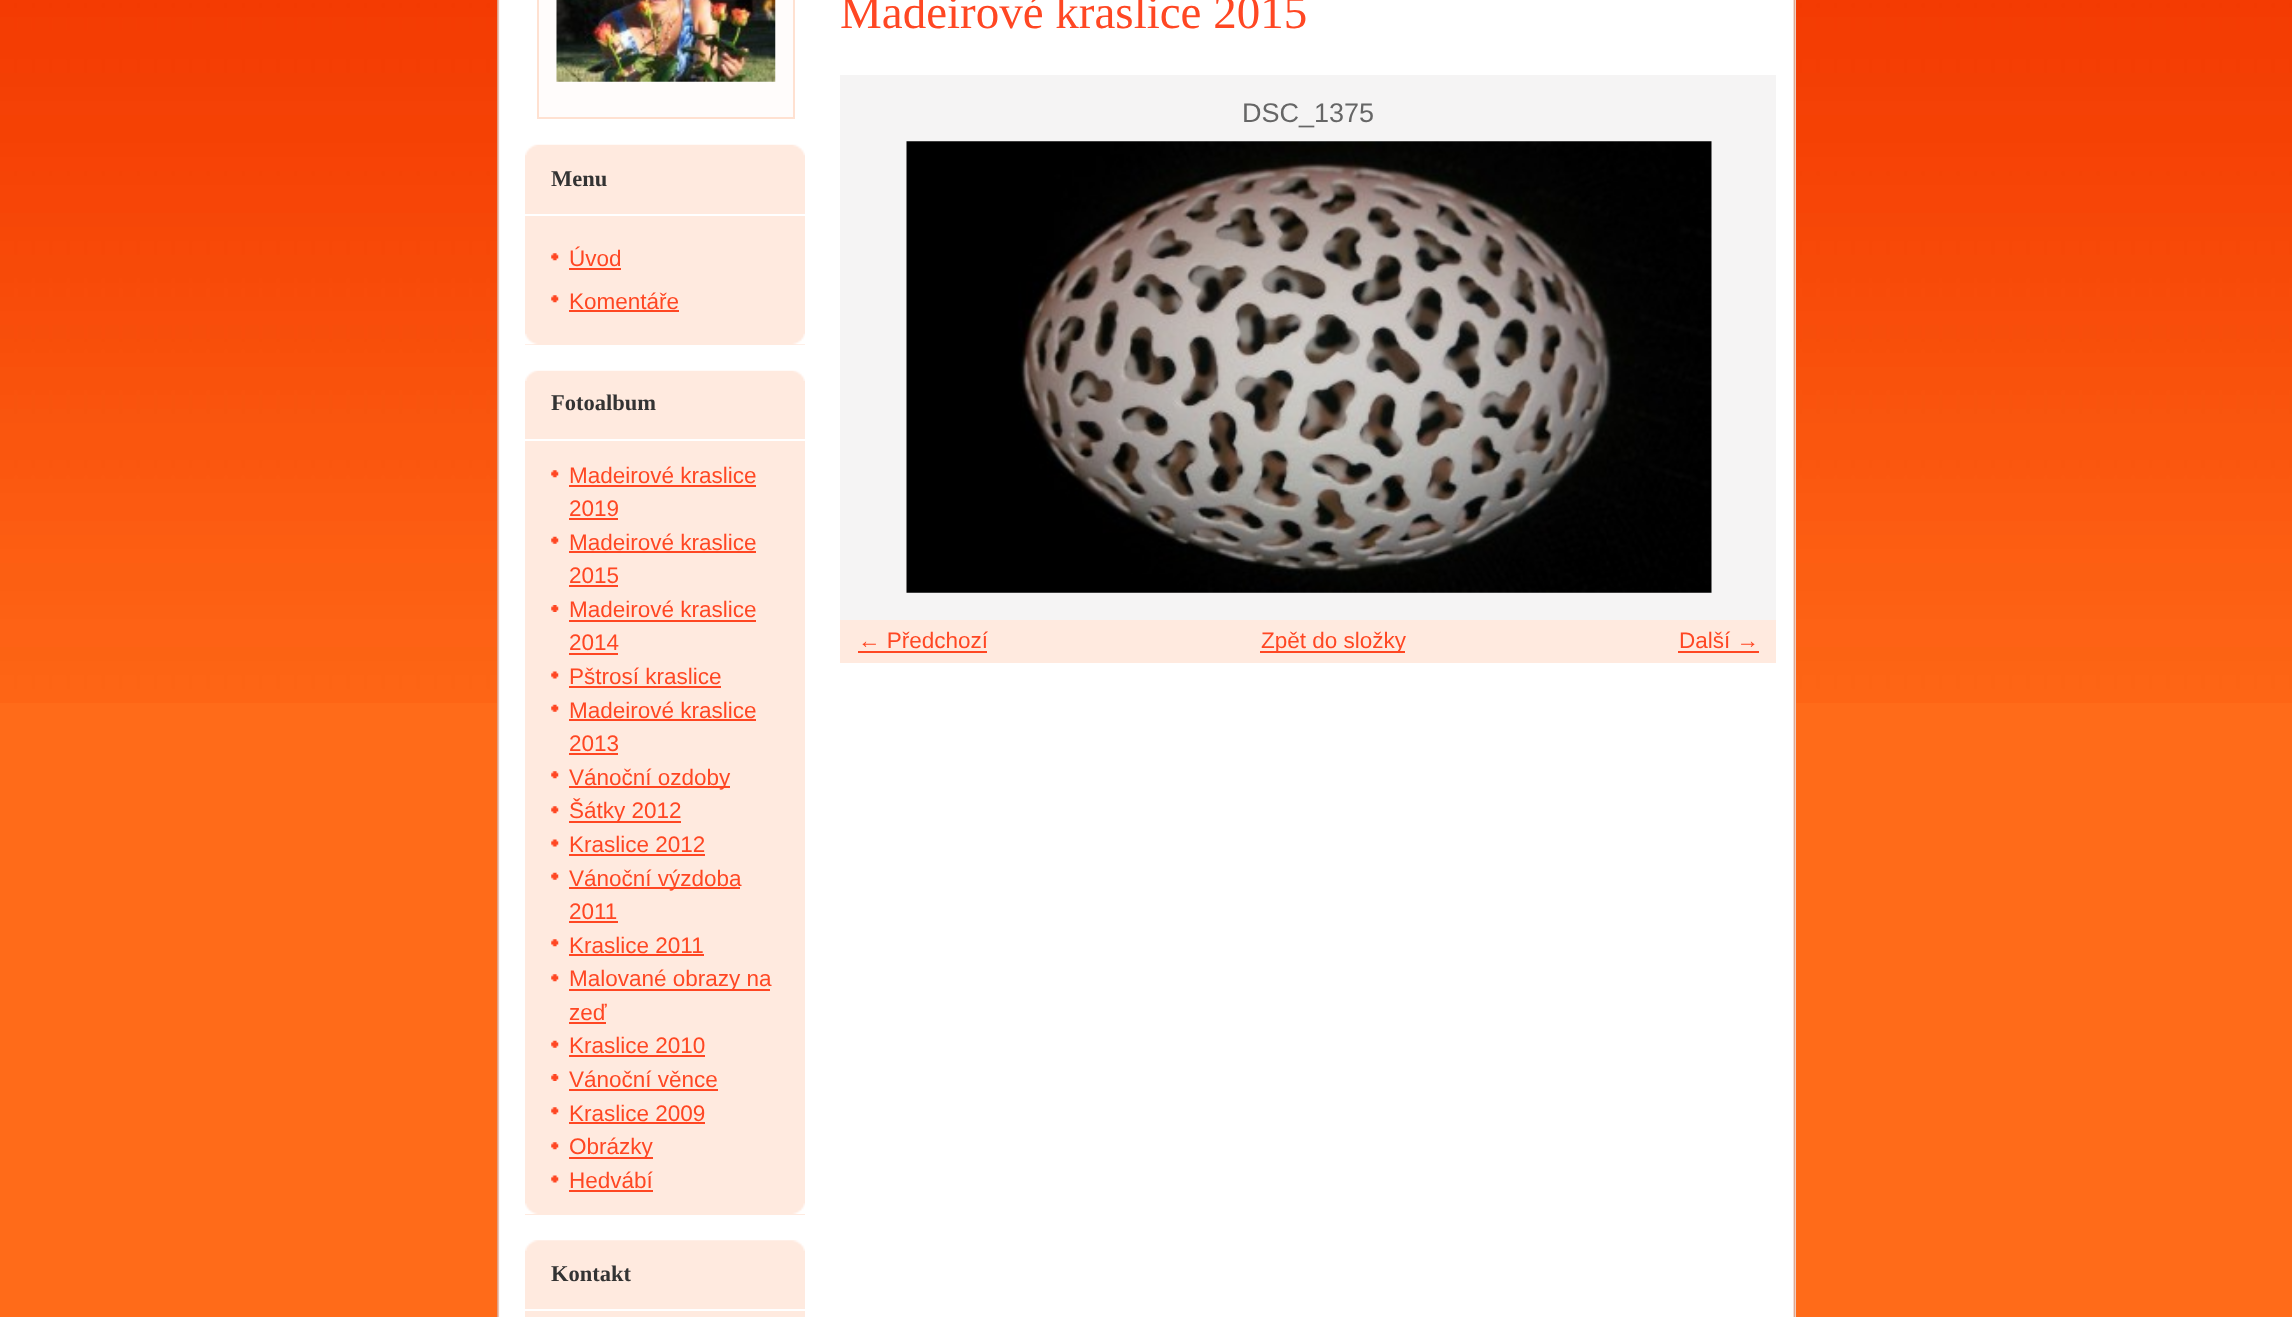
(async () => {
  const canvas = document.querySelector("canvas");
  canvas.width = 2292;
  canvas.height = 1317;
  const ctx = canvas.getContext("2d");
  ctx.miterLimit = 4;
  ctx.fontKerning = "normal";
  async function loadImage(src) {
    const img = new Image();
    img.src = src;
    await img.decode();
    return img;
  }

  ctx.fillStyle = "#ff6b19";
  ctx.fillRect(0, 0, 2292, 1317);
  ctx.drawImage(await loadImage("img/1.png"), 0, 0, 2292, 703);
  ctx.fillStyle = "#ffffff";
  ctx.fillRect(1795, 0, 1, 1317);
  ctx.drawImage(await loadImage("img/2.png"), 497, 0, 1299, 1317);
  ctx.fillStyle = "#fffcfb";
  ctx.beginPath();
  ctx.rect(538, -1, 256, 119);
  ctx.fill();
  ctx.strokeStyle = "#ffe1d1";
  ctx.lineWidth = 2;
  ctx.stroke();
  ctx.drawImage(await loadImage("img/3.png"), 556, 0, 220, 82);
  ctx.fillStyle = "#ffeadf";
  ctx.fillRect(525, 155, 280, 190);
  ctx.drawImage(await loadImage("img/4.png"), 525, 333, 280, 12);
  ctx.drawImage(await loadImage("img/5.png"), 525, 144, 280, 12);
  ctx.fillStyle = "#ffffff";
  ctx.fillRect(525, 214, 280, 2);
  ctx.drawImage(await loadImage("img/6.png"), 551, 253, 8, 8);
  ctx.fillStyle = "#ff4723";
  ctx.fillRect(569, 268, 52, 2);
  ctx.drawImage(await loadImage("img/6.png"), 551, 295, 8, 8);
  ctx.fillRect(569, 310, 110, 2);
  ctx.fillStyle = "#ffeadf";
  ctx.fillRect(525, 381, 280, 834);
  ctx.drawImage(await loadImage("img/7.png"), 525, 1203, 280, 11);
  ctx.drawImage(await loadImage("img/8.png"), 525, 370, 280, 11);
  ctx.fillStyle = "#ffffff";
  ctx.fillRect(525, 439, 280, 2);
  ctx.drawImage(await loadImage("img/6.png"), 551, 470, 8, 8);
  ctx.fillStyle = "#ff4723";
  ctx.fillRect(569, 485, 187, 2);
  ctx.fillRect(569, 518, 49, 2);
  ctx.drawImage(await loadImage("img/9.png"), 551, 536, 8, 8);
  ctx.fillRect(569, 551, 187, 2);
  ctx.fillRect(569, 585, 49, 2);
  ctx.drawImage(await loadImage("img/10.png"), 551, 605, 8, 7);
  ctx.fillRect(569, 620, 187, 2);
  ctx.fillRect(569, 653, 49, 2);
  ctx.drawImage(await loadImage("img/11.png"), 551, 671, 8, 8);
  ctx.fillRect(569, 686, 152, 2);
  ctx.drawImage(await loadImage("img/9.png"), 551, 704, 8, 8);
  ctx.fillRect(569, 719, 187, 2);
  ctx.fillRect(569, 753, 49, 2);
  ctx.drawImage(await loadImage("img/6.png"), 551, 771, 8, 8);
  ctx.fillRect(569, 786, 161, 2);
  ctx.drawImage(await loadImage("img/6.png"), 551, 806, 8, 8);
  ctx.fillRect(569, 821, 112, 2);
  ctx.drawImage(await loadImage("img/11.png"), 551, 839, 8, 8);
  ctx.fillRect(569, 854, 136, 2);
  ctx.drawImage(await loadImage("img/9.png"), 551, 872, 8, 8);
  ctx.fillRect(569, 887, 171, 2);
  ctx.fillRect(569, 921, 49, 2);
  ctx.drawImage(await loadImage("img/6.png"), 551, 939, 8, 8);
  ctx.fillRect(569, 954, 135, 2);
  ctx.drawImage(await loadImage("img/6.png"), 551, 974, 8, 8);
  ctx.fillRect(569, 989, 201, 2);
  ctx.fillRect(569, 1022, 37, 2);
  ctx.drawImage(await loadImage("img/9.png"), 551, 1040, 8, 8);
  ctx.fillRect(569, 1055, 136, 2);
  ctx.drawImage(await loadImage("img/10.png"), 551, 1074, 8, 7);
  ctx.fillRect(569, 1089, 149, 2);
  ctx.drawImage(await loadImage("img/6.png"), 551, 1107, 8, 8);
  ctx.fillRect(569, 1122, 136, 2);
  ctx.drawImage(await loadImage("img/6.png"), 551, 1142, 8, 8);
  ctx.fillRect(569, 1157, 84, 2);
  ctx.drawImage(await loadImage("img/11.png"), 551, 1175, 8, 8);
  ctx.fillRect(569, 1190, 84, 2);
  ctx.fillStyle = "#ffeadf";
  ctx.fillRect(525, 1250, 280, 67);
  ctx.drawImage(await loadImage("img/12.png"), 525, 1240, 280, 11);
  ctx.fillStyle = "#ffffff";
  ctx.fillRect(525, 1309, 280, 2);
  ctx.fillStyle = "#f5f4f4";
  ctx.fillRect(840, 75, 936, 545);
  ctx.drawImage(await loadImage("img/13.png"), 906, 141, 806, 452);
  for (const [x, y, w, h, color] of [
    [840, 620, 936, 43, "#ffeadf"],
    [858, 651, 129, 2, "#ff4723"],
    [1260, 651, 145, 2, "#ff4723"],
    [1678, 651, 81, 2, "#ff4723"],
  ]) {
    ctx.fillStyle = color;
    ctx.fillRect(x, y, w, h);
  }
  ctx.font = "bold 22.5px Liberation Serif";
  ctx.fillStyle = "#333333";
  ctx.fillText("Menu", 551, 186);
  ctx.font = "22.5px Liberation Sans";
  ctx.fillStyle = "#ff4723";
  ctx.fillText("Úvod", 569, 266);
  ctx.fillText("Komentáře", 569, 309);
  ctx.font = "bold 22.5px Liberation Serif";
  ctx.fillStyle = "#333333";
  ctx.fillText("Fotoalbum", 551, 410);
  ctx.font = "22.5px Liberation Sans";
  ctx.fillStyle = "#ff4723";
  for (const [text, x, y] of [
    ["Madeirové kraslice", 569, 483],
    ["2019", 569, 516],
    ["Madeirové kraslice", 569, 550],
    ["2015", 569, 583],
    ["Madeirové kraslice", 569, 617],
    ["2014", 569, 650],
    ["Pštrosí kraslice", 569, 684],
    ["Madeirové kraslice", 569, 718],
    ["2013", 569, 751],
    ["Vánoční ozdoby", 569, 785],
    ["Šátky 2012", 569, 818],
    ["Kraslice 2012", 569, 852],
    ["Vánoční výzdoba", 569, 886],
    ["2011", 569, 919],
    ["Kraslice 2011", 569, 953],
    ["Malované obrazy na", 569, 986],
    ["zeď", 569, 1020],
    ["Kraslice 2010", 569, 1053],
    ["Vánoční věnce", 569, 1087],
    ["Kraslice 2009", 569, 1121],
    ["Obrázky", 569, 1154],
    ["Hedvábí", 569, 1188],
  ]) {
    ctx.fillText(text, x, y);
  }
  ctx.font = "bold 22.5px Liberation Serif";
  ctx.fillStyle = "#333333";
  ctx.fillText("Kontakt", 551, 1281);
  ctx.font = "47px Liberation Serif";
  ctx.fillStyle = "#ff4723";
  ctx.fillText("Madeirové kraslice 2015", 840, 28);
  ctx.font = "27px Liberation Sans";
  ctx.fillStyle = "#666666";
  ctx.fillText("DSC_1375", 1242, 122);
  ctx.font = "22.5px Liberation Sans";
  ctx.fillStyle = "#ff4723";
  for (const [text, x, y] of [
    ["← Předchozí", 858, 648],
    ["Zpět do složky", 1261, 648],
    ["Další →", 1679, 648],
  ]) {
    ctx.fillText(text, x, y);
  }
})();
